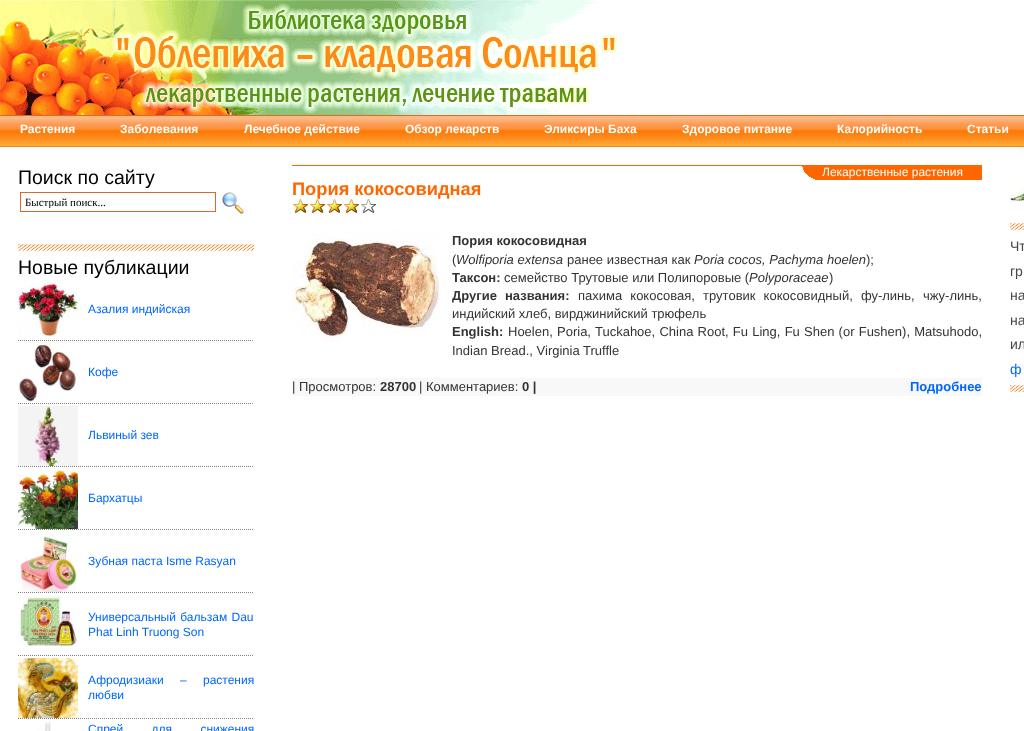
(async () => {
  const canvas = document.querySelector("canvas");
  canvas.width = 1024;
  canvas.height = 731;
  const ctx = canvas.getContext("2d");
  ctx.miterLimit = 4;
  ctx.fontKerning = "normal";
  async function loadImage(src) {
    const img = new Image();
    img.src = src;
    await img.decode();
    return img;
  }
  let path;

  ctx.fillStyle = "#ffffff";
  ctx.fillRect(0, 0, 1024, 731);
  ctx.drawImage(await loadImage("img/1.png"), 0, 0, 618, 115);
  ctx.drawImage(await loadImage("img/2.png"), 0, 115, 1024, 32);
  ctx.strokeStyle = "#d96c2b";
  ctx.strokeRect(20.5, 192.5, 195, 19);
  ctx.drawImage(await loadImage("img/3.png"), 222, 192, 22, 22);
  ctx.drawImage(await loadImage("img/4.png"), 18, 244, 236, 7);
  path = new Path2D("M18 340.5H254");
  ctx.strokeStyle = "#808080";
  ctx.setLineDash([1, 1]);
  ctx.stroke(path);
  ctx.drawImage(await loadImage("img/5.png"), 18, 280, 60, 58);
  path = new Path2D("M18 403.5H254");
  ctx.stroke(path);
  ctx.drawImage(await loadImage("img/6.png"), 18, 343, 58, 59);
  path = new Path2D("M18 466.5H254");
  ctx.stroke(path);
  ctx.drawImage(await loadImage("img/7.png"), 18, 406, 60, 60);
  path = new Path2D("M18 529.5H254");
  ctx.stroke(path);
  ctx.drawImage(await loadImage("img/8.png"), 18, 469, 60, 60);
  path = new Path2D("M18 592.5H254");
  ctx.stroke(path);
  ctx.drawImage(await loadImage("img/9.png"), 18, 536, 60, 56);
  path = new Path2D("M18 655.5H254");
  ctx.stroke(path);
  ctx.drawImage(await loadImage("img/10.png"), 18, 595, 60, 51);
  path = new Path2D("M18 718.5H254");
  ctx.stroke(path);
  ctx.drawImage(await loadImage("img/11.png"), 18, 658, 60, 60);
  ctx.drawImage(await loadImage("img/12.png"), 37, 721, 14, 10);
  ctx.fillStyle = "#ff6600";
  ctx.fillRect(292, 165, 690, 1);
  ctx.fillRect(802, 166, 180, 14);
  ctx.drawImage(await loadImage("img/13.png"), 802, 167, 13, 13);
  ctx.drawImage(await loadImage("img/14.png"), 294, 199, 82, 14);
  ctx.drawImage(await loadImage("img/15.png"), 293, 199, 66, 14);
  ctx.drawImage(await loadImage("img/16.png"), 292, 230, 150, 112);
  ctx.fillStyle = "#f8f8f8";
  ctx.fillRect(292, 378, 690, 18);
  ctx.drawImage(await loadImage("img/17.png"), 1010, 147, 14, 56);
  ctx.drawImage(await loadImage("img/18.png"), 1010, 223, 14, 7);
  ctx.drawImage(await loadImage("img/18.png"), 1010, 385, 14, 7);
  ctx.font = "bold 12px Liberation Sans";
  ctx.fillStyle = "#ffffff";
  for (const [text, x, y] of [
    ["Растения", 20, 133],
    ["Заболевания", 120, 133],
    ["Лечебное действие", 244, 133],
    ["Обзор лекарств", 405, 133],
    ["Эликсиры Баха", 544, 133],
    ["Здоровое питание", 682, 133],
    ["Калорийность", 837, 133],
    ["Статьи", 967, 133],
  ]) {
    ctx.fillText(text, x, y);
  }
  ctx.font = "19.5px Liberation Sans";
  ctx.fillStyle = "#000000";
  ctx.fillText("Поиск по сайту", 18, 184);
  ctx.save();
  ctx.beginPath();
  ctx.rect(25, 196, 190, 12);
  ctx.clip();
  ctx.font = "11px Liberation Serif";
  ctx.fillText("Быстрый поиск...", 25, 206);
  ctx.restore();
  ctx.fillText("Новые публикации", 18, 274);
  ctx.font = "12px Liberation Sans";
  ctx.fillStyle = "#0066ff";
  for (const [text, x, y] of [
    ["Азалия индийская", 88, 313],
    ["Кофе", 88, 376],
    ["Львиный зев", 88, 439],
    ["Бархатцы", 88, 502],
    ["Зубная паста Isme Rasyan", 88, 565],
  ]) {
    ctx.fillText(text, x, y);
  }
  ctx.wordSpacing = "1px";
  ctx.fillText("Универсальный бальзам Dau", 88, 621);
  ctx.wordSpacing = "0px";
  ctx.fillText("Phat Linh Truong Son", 88, 636);
  ctx.wordSpacing = "13px";
  ctx.fillText("Афродизиаки – растения", 88, 684);
  ctx.wordSpacing = "0px";
  ctx.fillText("любви", 88, 699);
  ctx.wordSpacing = "25px";
  ctx.fillText("Спрей для снижения", 88, 733);
  ctx.wordSpacing = "0px";
  ctx.fillStyle = "#ffffff";
  ctx.fillText("Лекарственные растения", 822, 176);
  ctx.font = "bold 18.25px Liberation Sans";
  ctx.fillStyle = "#ff6600";
  ctx.fillText("Пория кокосовидная", 292, 195);
  ctx.font = "bold 13px Liberation Sans";
  ctx.fillStyle = "#333333";
  ctx.fillText("Пория кокосовидная", 452, 245);
  ctx.font = "13px Liberation Sans";
  ctx.fillText("(", 452, 264);
  ctx.font = "italic 13px Liberation Sans";
  ctx.fillText("Wolfiporia extensa", 456, 264);
  ctx.font = "13px Liberation Sans";
  ctx.fillText("ранее известная как", 567, 264);
  ctx.font = "italic 13px Liberation Sans";
  ctx.fillText("Poria cocos, Pachyma hoelen", 694, 264);
  ctx.font = "13px Liberation Sans";
  ctx.fillText(");", 866, 264);
  ctx.font = "bold 13px Liberation Sans";
  ctx.fillText("Таксон:", 452, 282);
  ctx.font = "13px Liberation Sans";
  ctx.fillText("семейство Трутовые или Полипоровые (", 504, 282);
  ctx.font = "italic 13px Liberation Sans";
  ctx.fillText("Polyporaceae", 749, 282);
  ctx.font = "13px Liberation Sans";
  ctx.fillText(")", 829, 282);
  ctx.wordSpacing = "4.5px";
  ctx.font = "bold 13px Liberation Sans";
  ctx.fillText("Другие названия:", 452, 300);
  ctx.font = "13px Liberation Sans";
  ctx.fillText("пахима кокосовая, трутовик кокосовидный, фу-линь,", 578, 300);
  ctx.wordSpacing = "0px";
  ctx.fillText("чжу-линь,", 923, 300);
  ctx.fillText("индийский хлеб, вирджинийский трюфель", 452, 318);
  ctx.font = "bold 13px Liberation Sans";
  ctx.fillText("English:", 452, 336);
  ctx.wordSpacing = "0.6px";
  ctx.font = "13px Liberation Sans";
  ctx.fillText("Hoelen, Poria, Tuckahoe, China Root, Fu Ling, Fu Shen (or Fushen), Matsuhodo,", 508, 336);
  ctx.wordSpacing = "0px";
  ctx.fillText("Indian Bread., Virginia Truffle", 452, 355);
  ctx.fillText("| Просмотров:", 292, 391);
  ctx.font = "bold 13px Liberation Sans";
  ctx.fillText("28700", 380, 391);
  ctx.font = "13px Liberation Sans";
  ctx.fillText("| Комментариев:", 419, 391);
  ctx.font = "bold 13px Liberation Sans";
  ctx.fillText("0 |", 522, 391);
  ctx.fillStyle = "#0066ff";
  ctx.fillText("Подробнее", 910, 391);
  ctx.font = "14px Liberation Sans";
  ctx.fillStyle = "#474747";
  for (const [text, x, y] of [
    ["Чт", 1010, 251],
    ["гр", 1010, 276],
    ["на", 1010, 300],
    ["на", 1010, 325],
    ["ил", 1010, 349],
  ]) {
    ctx.fillText(text, x, y);
  }
  ctx.fillStyle = "#0066ff";
  ctx.fillText("ф", 1010, 374);
})();
